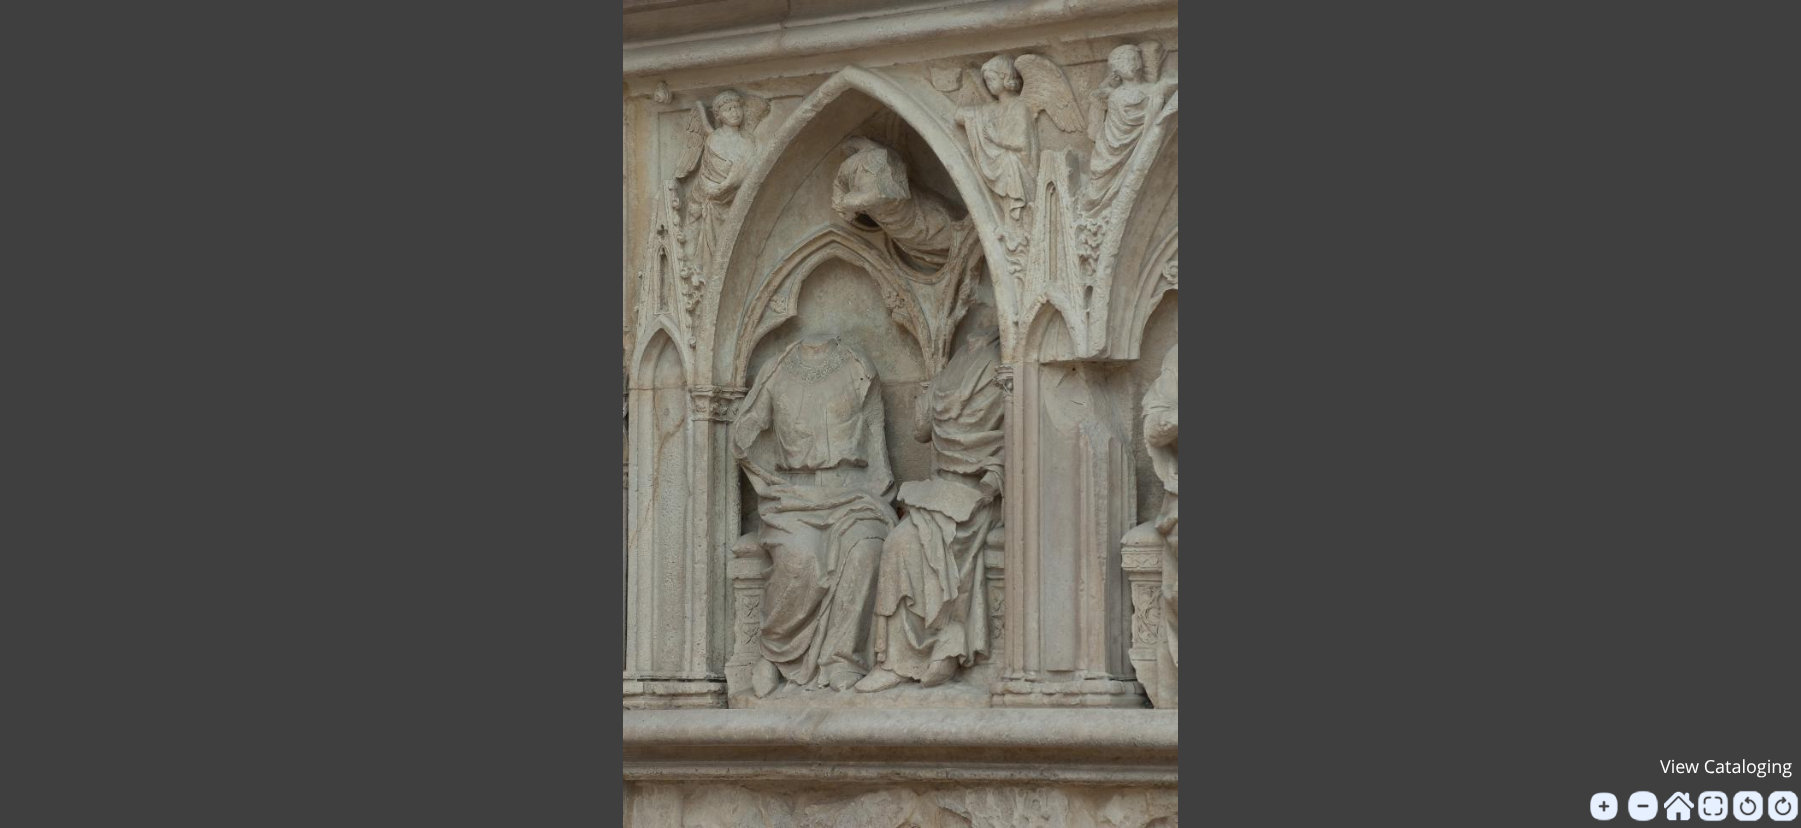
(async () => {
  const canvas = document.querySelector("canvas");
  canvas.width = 1801;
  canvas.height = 828;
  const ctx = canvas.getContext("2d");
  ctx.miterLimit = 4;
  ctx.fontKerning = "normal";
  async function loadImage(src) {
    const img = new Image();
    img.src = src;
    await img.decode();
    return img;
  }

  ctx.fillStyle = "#3f3f3f";
  ctx.fillRect(0, 0, 1801, 828);
  ctx.drawImage(await loadImage("img/1.png"), 623, 0, 555, 828);
  ctx.drawImage(await loadImage("img/2.png"), 1590, 792, 28, 29);
  ctx.drawImage(await loadImage("img/3.png"), 1590, 792, 28, 29);
  ctx.drawImage(await loadImage("img/4.png"), 1627, 790, 32, 32);
  ctx.drawImage(await loadImage("img/5.png"), 1628, 791, 30, 30);
  ctx.drawImage(await loadImage("img/6.png"), 1664, 791, 30, 30);
  ctx.drawImage(await loadImage("img/7.png"), 1664, 791, 30, 30);
  ctx.drawImage(await loadImage("img/8.png"), 1697, 790, 32, 32);
  ctx.drawImage(await loadImage("img/9.png"), 1698, 791, 30, 30);
  ctx.drawImage(await loadImage("img/10.png"), 1732, 790, 32, 32);
  ctx.drawImage(await loadImage("img/11.png"), 1733, 791, 30, 30);
  ctx.drawImage(await loadImage("img/12.png"), 1767, 790, 32, 32);
  ctx.drawImage(await loadImage("img/13.png"), 1768, 791, 30, 30);
  ctx.font = "18px Open Sans";
  ctx.fillStyle = "#ffffff";
  ctx.fillText("View Cataloging", 1660, 773);
})();
